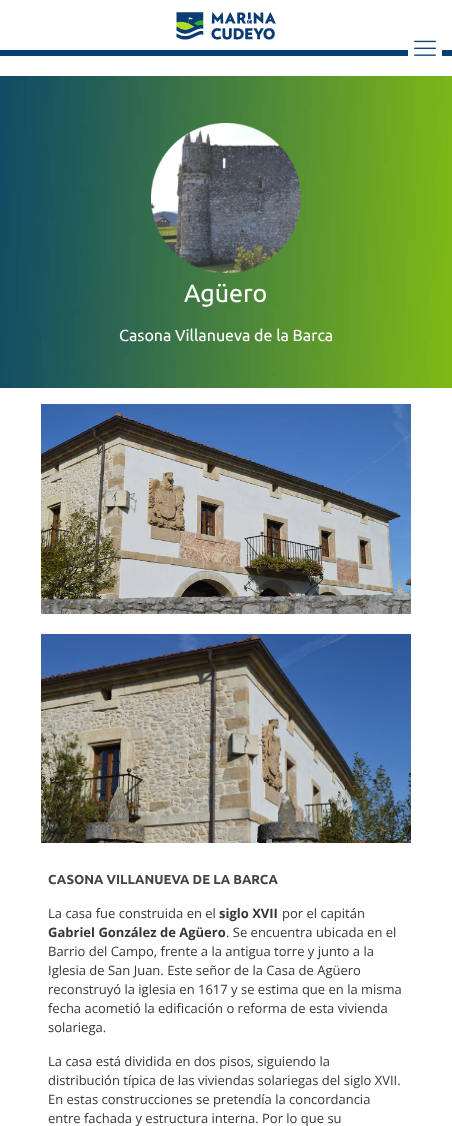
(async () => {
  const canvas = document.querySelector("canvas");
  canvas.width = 452;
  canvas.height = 1126;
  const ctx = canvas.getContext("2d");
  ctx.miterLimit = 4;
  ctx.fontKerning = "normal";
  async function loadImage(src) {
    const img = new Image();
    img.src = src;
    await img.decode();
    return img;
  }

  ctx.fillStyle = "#ffffff";
  ctx.fillRect(0, 0, 452, 1126);
  ctx.fillStyle = "#073e74";
  ctx.fillRect(0, 50, 452, 6);
  ctx.drawImage(await loadImage("img/1.png"), 176, 12, 100, 28);
  ctx.fillStyle = "#ffffff";
  ctx.beginPath();
  ctx.roundRect(408, 30, 34, 34, 3);
  ctx.fill();
  ctx.drawImage(await loadImage("img/2.png"), 414, 40, 22, 16);
  ctx.drawImage(await loadImage("img/3.png"), 0, 76, 452, 312);
  ctx.drawImage(await loadImage("img/4.png"), 151, 123, 150, 150);
  ctx.drawImage(await loadImage("img/5.png"), 41, 404, 370, 210);
  ctx.drawImage(await loadImage("img/6.png"), 41, 634, 370, 209);
  ctx.font = "25px Ubuntu";
  ctx.fillText("Agüero", 184, 302);
  ctx.font = "16px Ubuntu";
  ctx.fillText("Casona Villanueva de la Barca", 119, 341);
  ctx.font = "bold 13px Ubuntu";
  ctx.fillStyle = "#444444";
  ctx.fillText("CASONA VILLANUEVA DE LA BARCA", 48, 884);
  ctx.font = "13px Open Sans";
  ctx.fillStyle = "#343735";
  ctx.fillText("La casa fue construida en el", 48, 918);
  ctx.font = "bold 13px Open Sans";
  ctx.fillText("siglo XVII", 219, 918);
  ctx.font = "13px Open Sans";
  ctx.fillText("por el capitán", 282, 918);
  ctx.font = "bold 13px Open Sans";
  ctx.fillText("Gabriel González de Agüero", 48, 937);
  ctx.font = "13px Open Sans";
  for (const [text, x, y] of [
    [". Se encuentra ubicada en el", 226, 937],
    ["Barrio del Campo, frente a la antigua torre y junto a la", 48, 956],
    ["Iglesia de San Juan. Este señor de la Casa de Agüero", 48, 975],
    ["reconstruyó la iglesia en 1617 y se estima que en la misma", 48, 994],
    ["fecha acometió la edificación o reforma de esta vivienda", 48, 1013],
    ["solariega.", 48, 1032],
    ["La casa está dividida en dos pisos, siguiendo la", 48, 1066],
    ["distribución típica de las viviendas solariegas del siglo XVII.", 48, 1085],
    ["En estas construcciones se pretendía la concordancia", 48, 1104],
    ["entre fachada y estructura interna. Por lo que su", 48, 1123],
  ]) {
    ctx.fillText(text, x, y);
  }
})();
